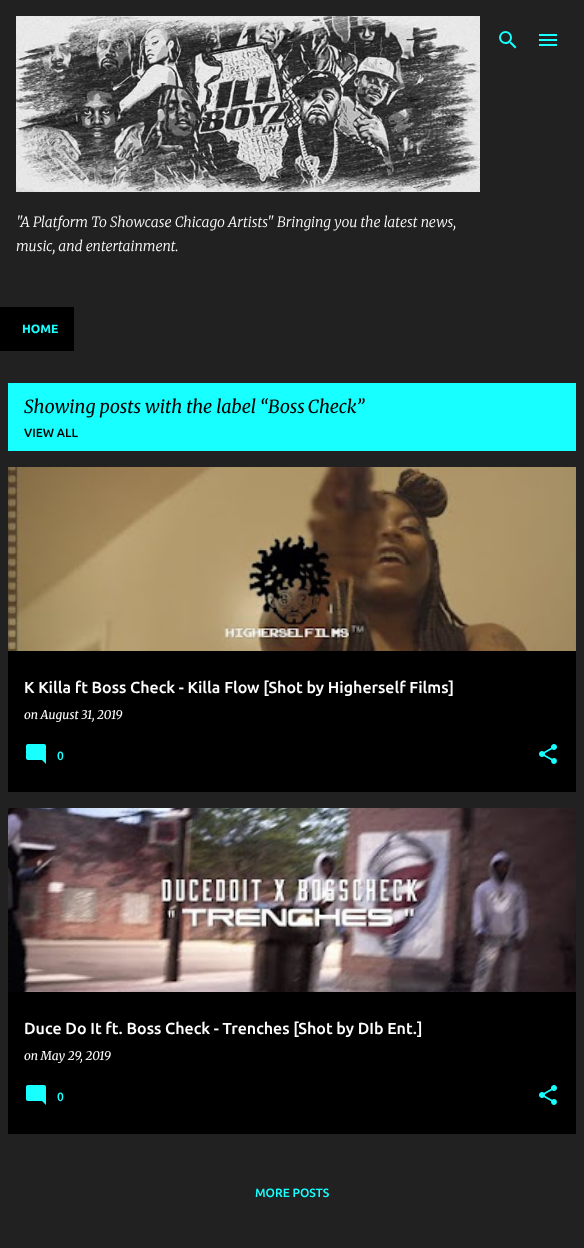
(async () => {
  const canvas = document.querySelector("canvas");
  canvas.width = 584;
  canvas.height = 1248;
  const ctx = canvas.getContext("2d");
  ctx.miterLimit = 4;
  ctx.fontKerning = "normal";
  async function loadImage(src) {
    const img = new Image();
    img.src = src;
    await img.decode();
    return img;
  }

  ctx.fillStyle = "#212121";
  ctx.fillRect(0, 0, 584, 1248);
  ctx.drawImage(await loadImage("img/1.png"), 499, 31, 18, 18);
  ctx.drawImage(await loadImage("img/2.png"), 539, 34, 18, 12);
  ctx.drawImage(await loadImage("img/3.png"), 16, 16, 464, 176);
  for (const [x, y, w, h, color] of [
    [0, 307, 74, 44, "#000000"],
    [8, 383, 568, 68, "#18ffff"],
    [8, 651, 568, 141, "#000000"],
  ]) {
    ctx.fillStyle = color;
    ctx.fillRect(x, y, w, h);
  }
  ctx.drawImage(await loadImage("img/4.png"), 8, 467, 568, 184);
  ctx.drawImage(await loadImage("img/5.png"), 26, 744, 20, 20);
  ctx.drawImage(await loadImage("img/6.png"), 539, 744, 18, 20);
  ctx.fillRect(8, 992, 568, 142);
  ctx.drawImage(await loadImage("img/7.png"), 8, 808, 568, 184);
  ctx.drawImage(await loadImage("img/8.png"), 26, 1085, 20, 20);
  ctx.drawImage(await loadImage("img/9.png"), 539, 1085, 18, 20);
  ctx.font = "italic 300 14px Merriweather";
  ctx.fillStyle = "#ffffff";
  ctx.fillText("\"A Platform To Showcase Chicago Artists\" Bringing you the latest news,", 16, 227);
  ctx.fillText("music, and entertainment.", 16, 251);
  ctx.font = "bold 12px Ubuntu";
  ctx.fillStyle = "#18ffff";
  ctx.fillText("HOME", 22, 333);
  ctx.font = "italic 18px Merriweather";
  ctx.fillStyle = "#000000";
  ctx.fillText("Showing posts with the label “", 24, 413);
  ctx.wordSpacing = "-1px";
  ctx.fillText("Boss Check", 268, 413);
  ctx.wordSpacing = "0px";
  ctx.fillText("”", 356, 413);
  ctx.font = "500 12px Ubuntu";
  ctx.fillText("VIEW ALL", 24, 437);
  ctx.font = "500 16px Ubuntu";
  ctx.fillStyle = "#ffffff";
  ctx.fillText("K Killa ft Boss Check - Killa Flow [Shot by Higherself Films]", 24, 693);
  ctx.font = "italic 12px Merriweather";
  ctx.fillText("on August 31, 2019", 24, 719);
  ctx.font = "500 12px Ubuntu";
  ctx.fillStyle = "#18ffff";
  ctx.fillText("0", 57, 760);
  ctx.font = "500 16px Ubuntu";
  ctx.fillStyle = "#ffffff";
  ctx.fillText("Duce Do It ft. Boss Check - Trenches [Shot by DIb Ent.]", 24, 1034);
  ctx.font = "italic 12px Merriweather";
  ctx.fillText("on May 29, 2019", 24, 1060);
  ctx.font = "500 12px Ubuntu";
  ctx.fillStyle = "#18ffff";
  ctx.fillText("0", 57, 1101);
  ctx.fillText("MORE POSTS", 255, 1197);
})();
